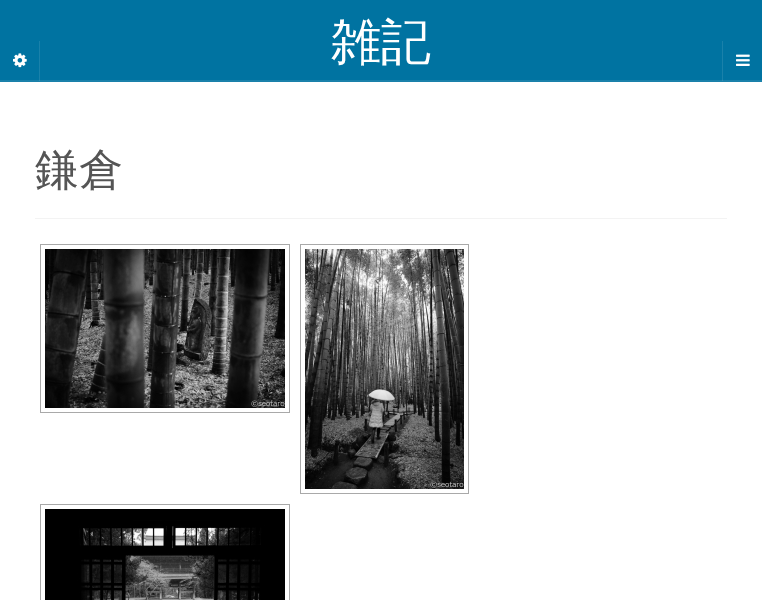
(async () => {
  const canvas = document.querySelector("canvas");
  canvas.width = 762;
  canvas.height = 600;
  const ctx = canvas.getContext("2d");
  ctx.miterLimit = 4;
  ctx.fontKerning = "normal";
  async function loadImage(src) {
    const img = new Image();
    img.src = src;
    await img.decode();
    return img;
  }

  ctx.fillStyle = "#0073a1";
  ctx.fillRect(0, 0, 762, 600);
  ctx.fillStyle = "#1a81aa";
  ctx.fillRect(0, 80, 762, 2);
  ctx.fillStyle = "rgba(255, 255, 255, 0.1)";
  ctx.fillRect(39, 41, 1, 40);
  ctx.drawImage(await loadImage("img/1.png"), 13, 53, 14, 15);
  ctx.fillRect(722, 41, 1, 40);
  ctx.drawImage(await loadImage("img/2.png"), 736, 54, 14, 12);
  ctx.fillStyle = "#ffffff";
  ctx.fillRect(0, 82, 762, 518);
  ctx.fillStyle = "#f3f3f3";
  ctx.fillRect(35, 218, 692, 1);
  ctx.strokeStyle = "#a9a9a9";
  ctx.strokeRect(40.5, 244.5, 249, 168);
  ctx.drawImage(await loadImage("img/3.png"), 45, 249, 240, 159);
  ctx.strokeRect(300.5, 244.5, 168, 249);
  ctx.drawImage(await loadImage("img/4.png"), 305, 249, 159, 240);
  ctx.strokeRect(40.5, 504.5, 249, 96);
  ctx.drawImage(await loadImage("img/5.png"), 45, 509, 240, 91);
  ctx.font = "500 50px WenQuanYi Zen Hei";
  ctx.fillStyle = "#ffffff";
  ctx.fillText("雑記", 331, 59);
  ctx.font = "500 44px WenQuanYi Zen Hei";
  ctx.fillStyle = "#555555";
  ctx.fillText("鎌倉", 35, 185);
})();
